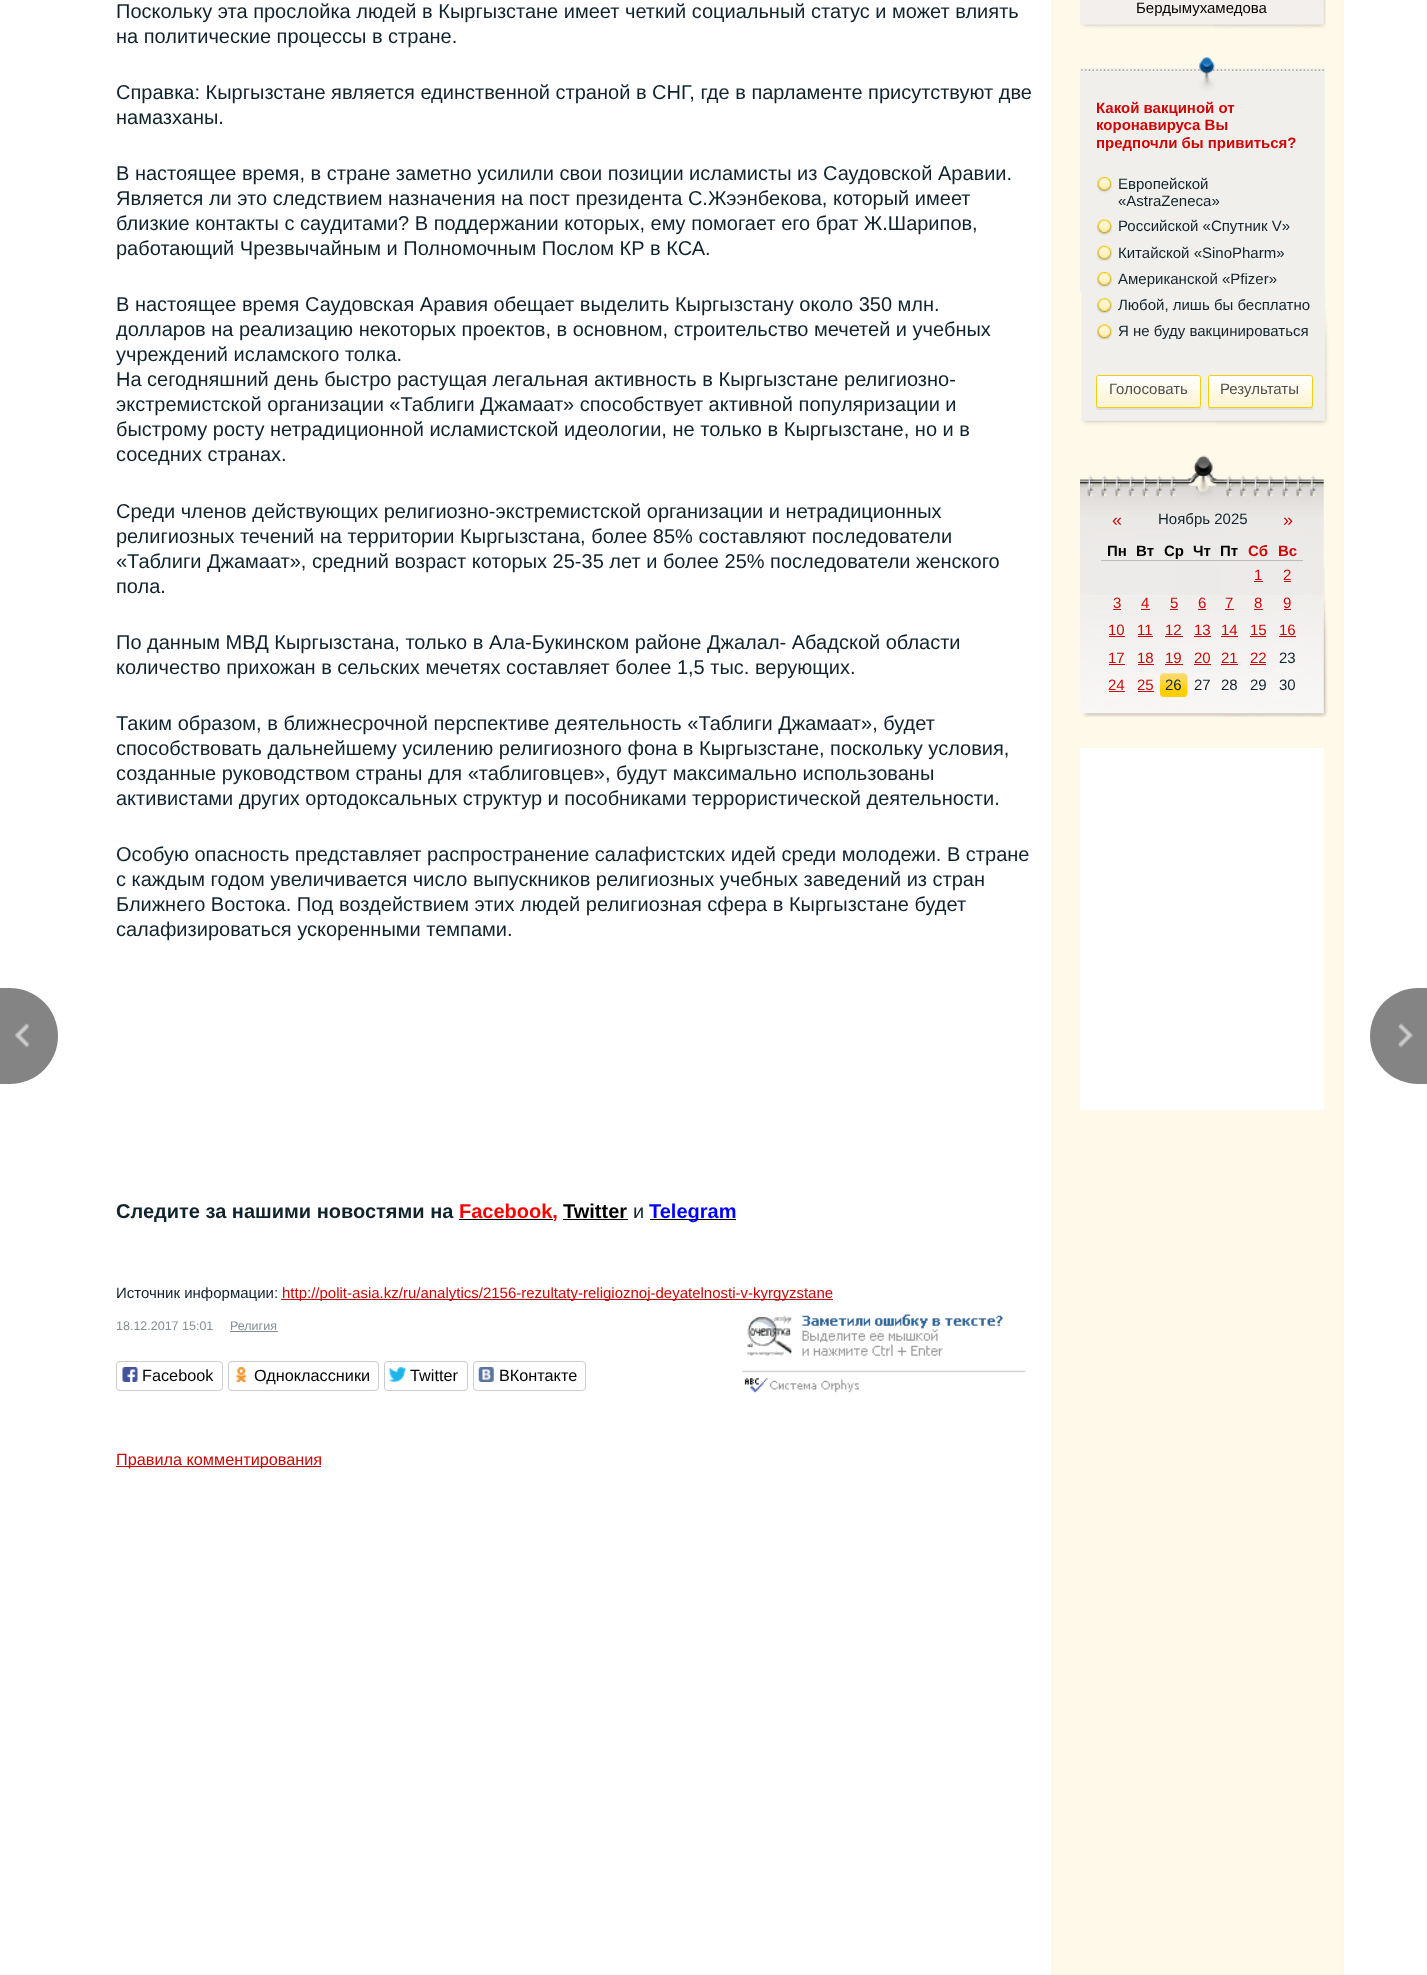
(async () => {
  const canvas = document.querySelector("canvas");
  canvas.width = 1427;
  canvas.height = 1975;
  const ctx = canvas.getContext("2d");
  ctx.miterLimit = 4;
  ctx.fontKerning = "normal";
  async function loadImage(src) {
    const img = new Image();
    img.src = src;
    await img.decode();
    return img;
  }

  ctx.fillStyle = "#ffffff";
  ctx.fillRect(0, 0, 1427, 1975);
  for (const [x, y, w, h, color] of [
    [459, 1219, 94, 1, "#000000"],
    [563, 1219, 65, 1, "#000000"],
    [650, 1219, 86, 1, "#000000"],
    [281, 1299, 552, 1, "#cb0707"],
    [230, 1331, 48, 1, "#828e94"],
  ]) {
    ctx.fillStyle = color;
    ctx.fillRect(x, y, w, h);
  }
  ctx.beginPath();
  ctx.roundRect(116.5, 1361.5, 106, 29, 3.5);
  ctx.strokeStyle = "#cccccc";
  ctx.stroke();
  ctx.drawImage(await loadImage("img/2.png"), 122, 1367, 16, 15);
  ctx.beginPath();
  ctx.roundRect(228.5, 1361.5, 150, 29, 3.5);
  ctx.stroke();
  ctx.drawImage(await loadImage("img/3.png"), 236, 1367, 11, 15);
  ctx.beginPath();
  ctx.roundRect(384.5, 1361.5, 83, 29, 3.5);
  ctx.stroke();
  ctx.drawImage(await loadImage("img/4.png"), 388, 1367, 19, 15);
  ctx.beginPath();
  ctx.roundRect(473.5, 1361.5, 112, 29, 3.5);
  ctx.stroke();
  ctx.drawImage(await loadImage("img/5.png"), 478, 1367, 16, 15);
  ctx.fillStyle = "#cb0707";
  ctx.fillRect(116, 1466, 205, 1);
  ctx.drawImage(await loadImage("img/6.png"), 1051, 0, 293, 1975);
  ctx.drawImage(await loadImage("img/7.png"), 1080, 0, 246, 29);
  ctx.drawImage(await loadImage("img/8.png"), 1080, 12, 246, 16);
  ctx.drawImage(await loadImage("img/9.png"), 1080, 57, 245, 235);
  ctx.drawImage(await loadImage("img/10.png"), 1080, 292, 249, 135);
  ctx.drawImage(await loadImage("img/11.png"), 1097, 177, 15, 16);
  ctx.drawImage(await loadImage("img/12.png"), 1097, 219, 15, 16);
  ctx.drawImage(await loadImage("img/13.png"), 1097, 245, 15, 16);
  ctx.drawImage(await loadImage("img/11.png"), 1097, 272, 15, 16);
  ctx.drawImage(await loadImage("img/14.png"), 1097, 298, 15, 16);
  ctx.drawImage(await loadImage("img/12.png"), 1097, 324, 15, 16);
  ctx.fillStyle = "rgba(0, 0, 0, 0.07)";
  ctx.filter = "blur(0.5px)";
  ctx.beginPath();
  ctx.roundRect(1096, 378, 105, 32, 2.5);
  ctx.fill();
  ctx.filter = "none";
  ctx.drawImage(await loadImage("img/15.png"), 1096, 375, 105, 32);
  ctx.beginPath();
  ctx.roundRect(1096.5, 375.5, 104, 32, 2);
  ctx.strokeStyle = "#f9cc0a";
  ctx.stroke();
  ctx.filter = "blur(0.5px)";
  ctx.beginPath();
  ctx.roundRect(1208, 378, 105, 32, 2.5);
  ctx.fill();
  ctx.filter = "none";
  ctx.drawImage(await loadImage("img/16.png"), 1207, 375, 106, 32);
  ctx.beginPath();
  ctx.roundRect(1208.5, 375.5, 104, 32, 2);
  ctx.stroke();
  ctx.drawImage(await loadImage("img/17.png"), 1080, 455, 248, 258);
  ctx.drawImage(await loadImage("img/18.png"), 1080, 595, 247, 122);
  for (const [x, y, w, h, color] of [
    [1101, 560, 202, 1, "#bdbbb9"],
    [1254, 581, 9, 1, "#cb0707"],
    [1284, 581, 7, 1, "#cb0707"],
    [1113, 609, 8, 1, "#cb0707"],
    [1141, 609, 9, 1, "#cb0707"],
    [1170, 609, 8, 1, "#cb0707"],
    [1198, 609, 8, 1, "#cb0707"],
    [1225, 609, 9, 1, "#cb0707"],
    [1254, 609, 9, 1, "#cb0707"],
    [1284, 609, 7, 1, "#cb0707"],
    [1109, 636, 16, 1, "#cb0707"],
    [1138, 636, 15, 1, "#cb0707"],
    [1165, 636, 18, 1, "#cb0707"],
    [1194, 636, 17, 1, "#cb0707"],
    [1221, 636, 17, 1, "#cb0707"],
    [1250, 636, 16, 1, "#cb0707"],
    [1279, 636, 17, 1, "#cb0707"],
    [1109, 664, 16, 1, "#cb0707"],
    [1138, 664, 16, 1, "#cb0707"],
    [1165, 664, 18, 1, "#cb0707"],
    [1194, 664, 17, 1, "#cb0707"],
    [1221, 664, 17, 1, "#cb0707"],
    [1250, 664, 16, 1, "#cb0707"],
    [1109, 691, 16, 1, "#cb0707"],
    [1138, 691, 16, 1, "#cb0707"],
  ]) {
    ctx.fillStyle = color;
    ctx.fillRect(x, y, w, h);
  }
  ctx.drawImage(await loadImage("img/19.png"), 1160, 673, 28, 24);
  ctx.fillStyle = "#ffffff";
  ctx.fillRect(1080, 748, 244, 362);
  ctx.fillStyle = "#848484";
  ctx.beginPath();
  ctx.roundRect(-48, 988, 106, 96, 48);
  ctx.fill();
  ctx.drawImage(await loadImage("img/20.png"), 15, 1023, 14, 25);
  ctx.beginPath();
  ctx.roundRect(1370, 988, 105, 96, 48);
  ctx.fill();
  ctx.drawImage(await loadImage("img/21.png"), 1398, 1023, 15, 25);
  ctx.font = "20px Liberation Sans";
  ctx.fillStyle = "#10232d";
  for (const [text, x, y] of [
    ["Поскольку эта прослойка людей в Кыргызстане имеет четкий социальный статус и может влиять", 116, 18],
    ["на политические процессы в стране.", 116, 43],
    ["Справка: Кыргызстане является единственной страной в СНГ, где в парламенте присутствуют две", 116, 99],
    ["намазханы.", 116, 124],
    ["В настоящее время, в стране заметно усилили свои позиции исламисты из Саудовской Аравии.", 116, 180],
    ["Является ли это следствием назначения на пост президента С.Жээнбекова, который имеет", 116, 205],
    ["близкие контакты с саудитами? В поддержании которых, ему помогает его брат Ж.Шарипов,", 116, 230],
    ["работающий Чрезвычайным и Полномочным Послом КР в КСА.", 116, 255],
    ["В настоящее время Саудовская Аравия обещает выделить Кыргызстану около 350 млн.", 116, 311],
    ["долларов на реализацию некоторых проектов, в основном, строительство мечетей и учебных", 116, 336],
    ["учреждений исламского толка.", 116, 361],
    ["На сегодняшний день быстро растущая легальная активность в Кыргызстане религиозно-", 116, 386],
    ["экстремистской организации «Таблиги Джамаат» способствует активной популяризации и", 116, 411],
    ["быстрому росту нетрадиционной исламистской идеологии, не только в Кыргызстане, но и в", 116, 436],
    ["соседних странах.", 116, 461],
    ["Среди членов действующих религиозно-экстремистской организации и нетрадиционных", 116, 518],
    ["религиозных течений на территории Кыргызстана, более 85% составляют последователи", 116, 543],
    ["«Таблиги Джамаат», средний возраст которых 25-35 лет и более 25% последователи женского", 116, 568],
    ["пола.", 116, 593],
    ["По данным МВД Кыргызстана, только в Ала-Букинском районе Джалал- Абадской области", 116, 649],
    ["количество прихожан в сельских мечетях составляет более 1,5 тыс. верующих.", 116, 674],
    ["Таким образом, в ближнесрочной перспективе деятельность «Таблиги Джамаат», будет", 116, 730],
    ["способствовать дальнейшему усилению религиозного фона в Кыргызстане, поскольку условия,", 116, 755],
    ["созданные руководством страны для «таблиговцев», будут максимально использованы", 116, 780],
    ["активистами других ортодоксальных структур и пособниками террористической деятельности.", 116, 805],
    ["Особую опасность представляет распространение салафистских идей среди молодежи. В стране", 116, 861],
    ["с каждым годом увеличивается число выпускников религиозных учебных заведений из стран", 116, 886],
    ["Ближнего Востока. Под воздействием этих людей религиозная сфера в Кыргызстане будет", 116, 911],
    ["салафизироваться ускоренными темпами.", 116, 936],
  ]) {
    ctx.fillText(text, x, y);
  }
  ctx.font = "bold 20px Liberation Sans";
  ctx.fillText("Следите за нашими новостями на", 116, 1218);
  ctx.fillStyle = "#ff0000";
  ctx.fillText("Facebook,", 459, 1218);
  ctx.fillStyle = "#000000";
  ctx.fillText("Twitter", 563, 1218);
  ctx.font = "20px Liberation Sans";
  ctx.fillStyle = "#10232d";
  ctx.fillText("и", 633, 1218);
  ctx.font = "bold 20px Liberation Sans";
  ctx.fillStyle = "#0000ff";
  ctx.fillText("Telegram", 649, 1218);
  ctx.font = "15px Liberation Sans";
  ctx.fillStyle = "#10232d";
  ctx.fillText("Источник информации:", 116, 1298);
  ctx.fillStyle = "#cb0707";
  ctx.fillText("http://polit-asia.kz/ru/analytics/2156-rezultaty-religioznoj-deyatelnosti-v-kyrgyzstane", 282, 1298);
  ctx.font = "12.5px Liberation Sans";
  ctx.fillStyle = "#828e94";
  ctx.fillText("18.12.2017 15:01", 116, 1330);
  ctx.fillText("Религия", 230, 1330);
  ctx.drawImage(await loadImage("img/1.png"), 742, 1300, 284, 93);
  ctx.font = "16.25px Liberation Sans";
  ctx.fillStyle = "#000000";
  for (const [text, x, y] of [
    ["Facebook", 142, 1381],
    ["Одноклассники", 254, 1381],
    ["Twitter", 410, 1381],
    ["ВКонтакте", 499, 1381],
  ]) {
    ctx.fillText(text, x, y);
  }
  ctx.fillStyle = "#cb0707";
  ctx.fillText("Правила комментирования", 116, 1465);
  ctx.font = "15px Liberation Sans";
  ctx.fillStyle = "#000000";
  ctx.fillText("Бердымухамедова", 1136, 13);
  ctx.font = "bold 15px Liberation Sans";
  ctx.fillStyle = "#cb0707";
  for (const [text, x, y] of [
    ["Какой вакциной от", 1096, 113],
    ["коронавируса Вы", 1096, 130],
    ["предпочли бы привиться?", 1096, 148],
  ]) {
    ctx.fillText(text, x, y);
  }
  ctx.font = "15px Liberation Sans";
  ctx.fillStyle = "#10232d";
  for (const [text, x, y] of [
    ["Европейской", 1118, 189],
    ["«AstraZeneca»", 1118, 206],
    ["Российской «Спутник V»", 1118, 231],
    ["Китайской «SinoPharm»", 1118, 258],
    ["Американской «Pfizer»", 1118, 284],
    ["Любой, лишь бы бесплатно", 1118, 310],
    ["Я не буду вакцинироваться", 1118, 336],
  ]) {
    ctx.fillText(text, x, y);
  }
  ctx.fillStyle = "#505050";
  ctx.fillText("Голосовать", 1109, 394);
  ctx.fillText("Результаты", 1220, 394);
  ctx.font = "18px Liberation Sans";
  ctx.fillStyle = "#cb0707";
  ctx.fillText("«", 1112, 526);
  ctx.font = "15px Liberation Sans";
  ctx.fillStyle = "#10232d";
  ctx.fillText("Ноябрь 2025", 1158, 524);
  ctx.font = "18px Liberation Sans";
  ctx.fillStyle = "#cb0707";
  ctx.fillText("»", 1283, 526);
  ctx.font = "bold 15px Liberation Sans";
  ctx.fillStyle = "#000000";
  for (const [text, x, y] of [
    ["Пн", 1107, 556],
    ["Вт", 1136, 556],
    ["Ср", 1164, 556],
    ["Чт", 1193, 556],
    ["Пт", 1220, 556],
  ]) {
    ctx.fillText(text, x, y);
  }
  ctx.fillStyle = "#cb0707";
  ctx.fillText("Сб", 1248, 556);
  ctx.fillText("Вс", 1278, 556);
  ctx.font = "15px Liberation Sans";
  for (const [text, x, y] of [
    ["1", 1254, 580],
    ["2", 1283, 580],
    ["3", 1113, 608],
    ["4", 1141, 608],
    ["5", 1170, 608],
    ["6", 1198, 608],
    ["7", 1225, 608],
    ["8", 1254, 608],
    ["9", 1283, 608],
    ["10", 1108, 635],
    ["11", 1137, 635],
    ["12", 1165, 635],
    ["13", 1194, 635],
    ["14", 1221, 635],
    ["15", 1250, 635],
    ["16", 1279, 635],
    ["17", 1108, 663],
    ["18", 1137, 663],
    ["19", 1165, 663],
    ["20", 1194, 663],
    ["21", 1221, 663],
    ["22", 1250, 663],
  ]) {
    ctx.fillText(text, x, y);
  }
  ctx.fillStyle = "#10232d";
  ctx.fillText("23", 1279, 663);
  ctx.fillStyle = "#cb0707";
  ctx.fillText("24", 1108, 690);
  ctx.fillText("25", 1137, 690);
  ctx.fillStyle = "#10232d";
  for (const [text, x, y] of [
    ["26", 1165, 690],
    ["27", 1194, 690],
    ["28", 1221, 690],
    ["29", 1250, 690],
    ["30", 1279, 690],
  ]) {
    ctx.fillText(text, x, y);
  }
})();
